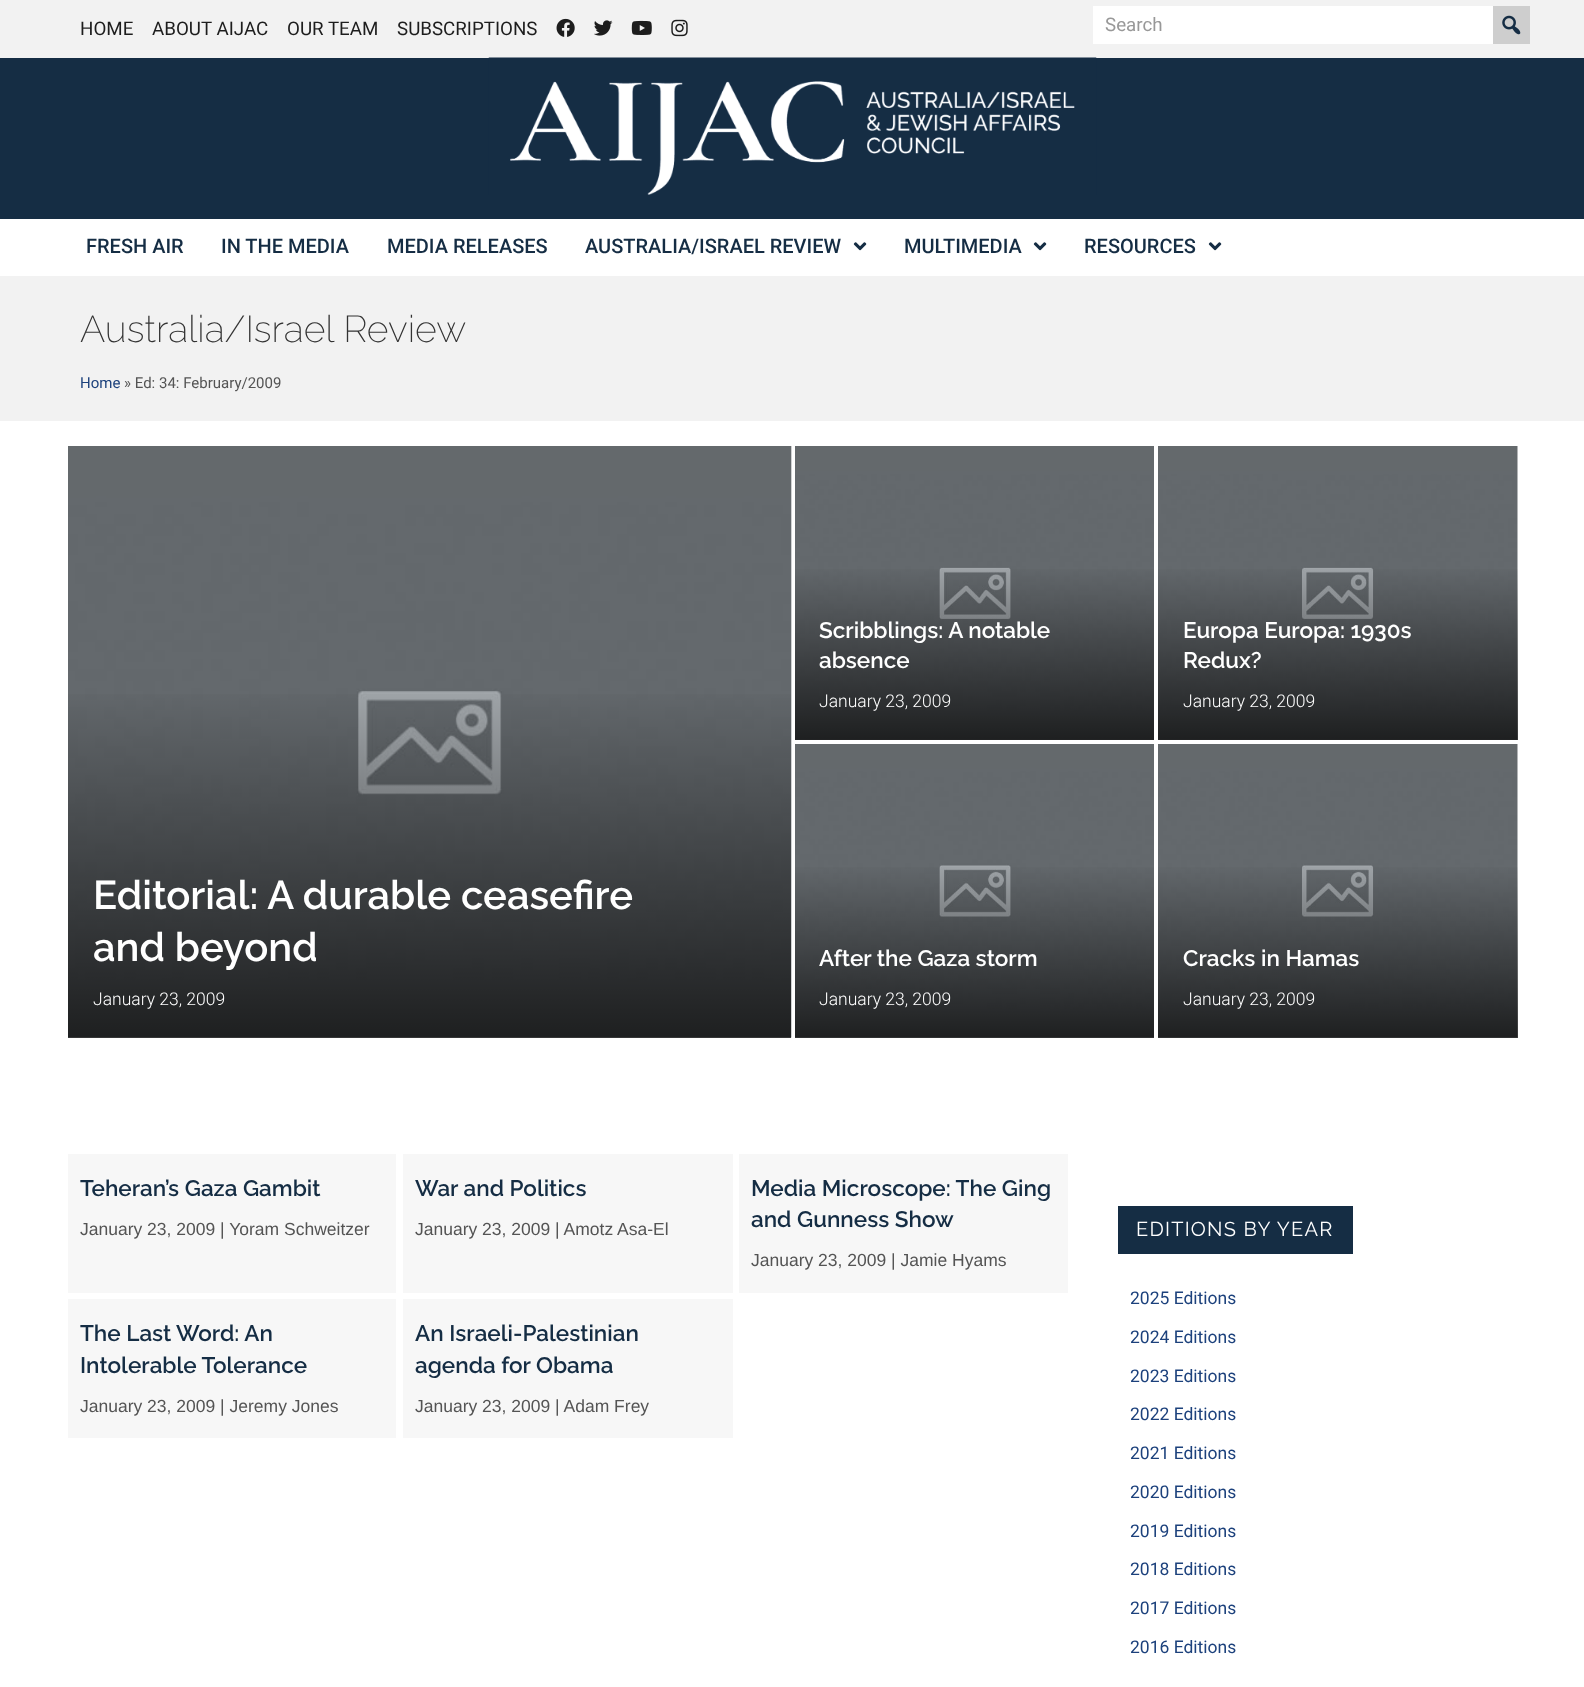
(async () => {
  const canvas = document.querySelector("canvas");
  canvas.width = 1584;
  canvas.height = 1687;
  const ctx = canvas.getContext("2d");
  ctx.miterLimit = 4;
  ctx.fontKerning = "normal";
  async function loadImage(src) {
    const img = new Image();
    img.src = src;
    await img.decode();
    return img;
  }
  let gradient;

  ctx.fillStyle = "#f2f2f2";
  ctx.fillRect(0, 0, 1584, 1687);
  ctx.drawImage(await loadImage("img/1.png"), 556, 18, 19, 19);
  ctx.drawImage(await loadImage("img/2.png"), 594, 20, 19, 16);
  ctx.drawImage(await loadImage("img/3.png"), 631, 20, 21, 15);
  ctx.drawImage(await loadImage("img/4.png"), 671, 19, 17, 18);
  ctx.fillStyle = "#ffffff";
  ctx.fillRect(1093, 6, 400, 38);
  ctx.fillStyle = "#cecece";
  ctx.fillRect(1493, 6, 37, 38);
  ctx.drawImage(await loadImage("img/5.png"), 1502, 15, 19, 20);
  ctx.fillStyle = "#152d44";
  ctx.fillRect(0, 58, 1584, 161);
  ctx.drawImage(await loadImage("img/6.png"), 488, 57, 609, 138);
  ctx.fillStyle = "#ffffff";
  ctx.fillRect(0, 219, 1584, 57);
  ctx.drawImage(await loadImage("img/7.png"), 853, 242, 14, 9);
  ctx.drawImage(await loadImage("img/7.png"), 1033, 242, 14, 9);
  ctx.drawImage(await loadImage("img/7.png"), 1208, 242, 14, 9);
  ctx.fillRect(0, 421, 1584, 1266);
  ctx.drawImage(await loadImage("img/8.png"), 68, 446, 724, 592);
  gradient = ctx.createLinearGradient(429, 446, 429, 1038);
  gradient.addColorStop(0.4, "rgba(0, 0, 0, 0)");
  gradient.addColorStop(1, "rgba(0, 0, 0, 0.7)");
  ctx.fillStyle = gradient;
  ctx.fillRect(68, 694, 723, 344);
  ctx.drawImage(await loadImage("img/9.png"), 795, 446, 359, 294);
  gradient = ctx.createLinearGradient(974, 446, 974, 740);
  gradient.addColorStop(0.4, "rgba(0, 0, 0, 0)");
  gradient.addColorStop(1, "rgba(0, 0, 0, 0.7)");
  ctx.fillStyle = gradient;
  ctx.fillRect(795, 569, 359, 171);
  ctx.drawImage(await loadImage("img/10.png"), 1158, 446, 360, 294);
  gradient = ctx.createLinearGradient(1338, 446, 1338, 740);
  gradient.addColorStop(0.4, "rgba(0, 0, 0, 0)");
  gradient.addColorStop(1, "rgba(0, 0, 0, 0.7)");
  ctx.fillStyle = gradient;
  ctx.fillRect(1158, 569, 360, 171);
  ctx.drawImage(await loadImage("img/11.png"), 795, 744, 359, 294);
  gradient = ctx.createLinearGradient(974, 744, 974, 1038);
  gradient.addColorStop(0.4, "rgba(0, 0, 0, 0)");
  gradient.addColorStop(1, "rgba(0, 0, 0, 0.7)");
  ctx.fillStyle = gradient;
  ctx.fillRect(795, 867, 359, 171);
  ctx.drawImage(await loadImage("img/12.png"), 1158, 744, 360, 294);
  gradient = ctx.createLinearGradient(1338, 744, 1338, 1038);
  gradient.addColorStop(0.4, "rgba(0, 0, 0, 0)");
  gradient.addColorStop(1, "rgba(0, 0, 0, 0.7)");
  ctx.fillStyle = gradient;
  ctx.fillRect(1158, 867, 360, 171);
  for (const [x, y, w, h, color] of [
    [68, 1154, 328, 139, "#f7f7f7"],
    [403, 1154, 330, 139, "#f7f7f7"],
    [739, 1154, 329, 139, "#f7f7f7"],
    [68, 1299, 328, 139, "#f7f7f7"],
    [403, 1299, 330, 139, "#f7f7f7"],
    [1118, 1206, 235, 48, "#152d44"],
  ]) {
    ctx.fillStyle = color;
    ctx.fillRect(x, y, w, h);
  }
  ctx.font = "18.75px Roboto";
  ctx.fillStyle = "#1d1d1d";
  for (const [text, x, y] of [
    ["HOME", 80, 35],
    ["ABOUT AIJAC", 152, 35],
    ["OUR TEAM", 287, 35],
    ["SUBSCRIPTIONS", 397, 35],
  ]) {
    ctx.fillText(text, x, y);
  }
  ctx.fillStyle = "#989898";
  ctx.fillText("Search", 1105, 31);
  ctx.font = "500 20px Roboto";
  ctx.fillStyle = "#152d44";
  for (const [text, x, y] of [
    ["FRESH AIR", 86, 253],
    ["IN THE MEDIA", 221, 253],
    ["MEDIA RELEASES", 387, 253],
    ["AUSTRALIA/ISRAEL REVIEW", 585, 253],
    ["MULTIMEDIA", 904, 253],
    ["RESOURCES", 1084, 253],
  ]) {
    ctx.fillText(text, x, y);
  }
  ctx.font = "200 37.5px Raleway";
  ctx.fillStyle = "#333333";
  ctx.fillText("Australia/Israel Review", 80, 342);
  ctx.font = "15px Roboto";
  ctx.fillStyle = "#1c417c";
  ctx.fillText("Home", 80, 388);
  ctx.fillStyle = "#545454";
  ctx.fillText("» Ed: 34: February/2009", 124, 388);
  ctx.font = "600 40px Raleway";
  ctx.fillStyle = "#ffffff";
  ctx.fillText("Editorial: A durable ceasefire", 93, 909);
  ctx.fillText("and beyond", 93, 961);
  ctx.font = "300 17.5px Roboto";
  ctx.fillText("January 23, 2009", 93, 1005);
  ctx.font = "600 22.5px Raleway";
  ctx.fillText("Scribblings: A notable", 819, 638);
  ctx.fillText("absence", 819, 668);
  ctx.font = "300 17.5px Roboto";
  ctx.fillText("January 23, 2009", 819, 707);
  ctx.font = "600 22.5px Raleway";
  ctx.fillText("Europa Europa: 1930s", 1183, 638);
  ctx.fillText("Redux?", 1183, 668);
  ctx.font = "300 17.5px Roboto";
  ctx.fillText("January 23, 2009", 1183, 707);
  ctx.font = "600 22.5px Raleway";
  ctx.fillText("After the Gaza storm", 819, 966);
  ctx.font = "300 17.5px Roboto";
  ctx.fillText("January 23, 2009", 819, 1005);
  ctx.font = "600 22.5px Raleway";
  ctx.fillText("Cracks in Hamas", 1183, 966);
  ctx.font = "300 17.5px Roboto";
  ctx.fillText("January 23, 2009", 1183, 1005);
  ctx.font = "600 22.5px Raleway";
  ctx.fillStyle = "#152d44";
  ctx.fillText("Teheran’s Gaza Gambit", 80, 1196);
  ctx.font = "17.5px Liberation Sans";
  ctx.fillStyle = "#545454";
  ctx.fillText("January 23, 2009 | Yoram Schweitzer", 80, 1235);
  ctx.font = "600 22.5px Raleway";
  ctx.fillStyle = "#152d44";
  ctx.fillText("War and Politics", 415, 1196);
  ctx.font = "17.5px Liberation Sans";
  ctx.fillStyle = "#545454";
  ctx.fillText("January 23, 2009 | Amotz Asa-El", 415, 1235);
  ctx.font = "600 22.5px Raleway";
  ctx.fillStyle = "#152d44";
  ctx.fillText("Media Microscope: The Ging", 751, 1196);
  ctx.fillText("and Gunness Show", 751, 1227);
  ctx.font = "17.5px Liberation Sans";
  ctx.fillStyle = "#545454";
  ctx.fillText("January 23, 2009 | Jamie Hyams", 751, 1266);
  ctx.font = "600 22.5px Raleway";
  ctx.fillStyle = "#152d44";
  ctx.fillText("The Last Word: An", 80, 1341);
  ctx.fillText("Intolerable Tolerance", 80, 1373);
  ctx.font = "17.5px Liberation Sans";
  ctx.fillStyle = "#545454";
  ctx.fillText("January 23, 2009 | Jeremy Jones", 80, 1412);
  ctx.font = "600 22.5px Raleway";
  ctx.fillStyle = "#152d44";
  ctx.fillText("An Israeli-Palestinian", 415, 1341);
  ctx.fillText("agenda for Obama", 415, 1373);
  ctx.font = "17.5px Liberation Sans";
  ctx.fillStyle = "#545454";
  ctx.fillText("January 23, 2009 | Adam Frey", 415, 1412);
  ctx.letterSpacing = "1.25px";
  ctx.font = "20px Raleway";
  ctx.fillStyle = "#ffffff";
  ctx.fillText("EDITIONS BY YEAR", 1136, 1236);
  ctx.letterSpacing = "0px";
  ctx.font = "17.5px Roboto";
  ctx.fillStyle = "#1c417c";
  for (const [text, x, y] of [
    ["2025 Editions", 1130, 1304],
    ["2024 Editions", 1130, 1343],
    ["2023 Editions", 1130, 1382],
    ["2022 Editions", 1130, 1420],
    ["2021 Editions", 1130, 1459],
    ["2020 Editions", 1130, 1498],
    ["2019 Editions", 1130, 1537],
    ["2018 Editions", 1130, 1575],
    ["2017 Editions", 1130, 1614],
    ["2016 Editions", 1130, 1653],
  ]) {
    ctx.fillText(text, x, y);
  }
})();
